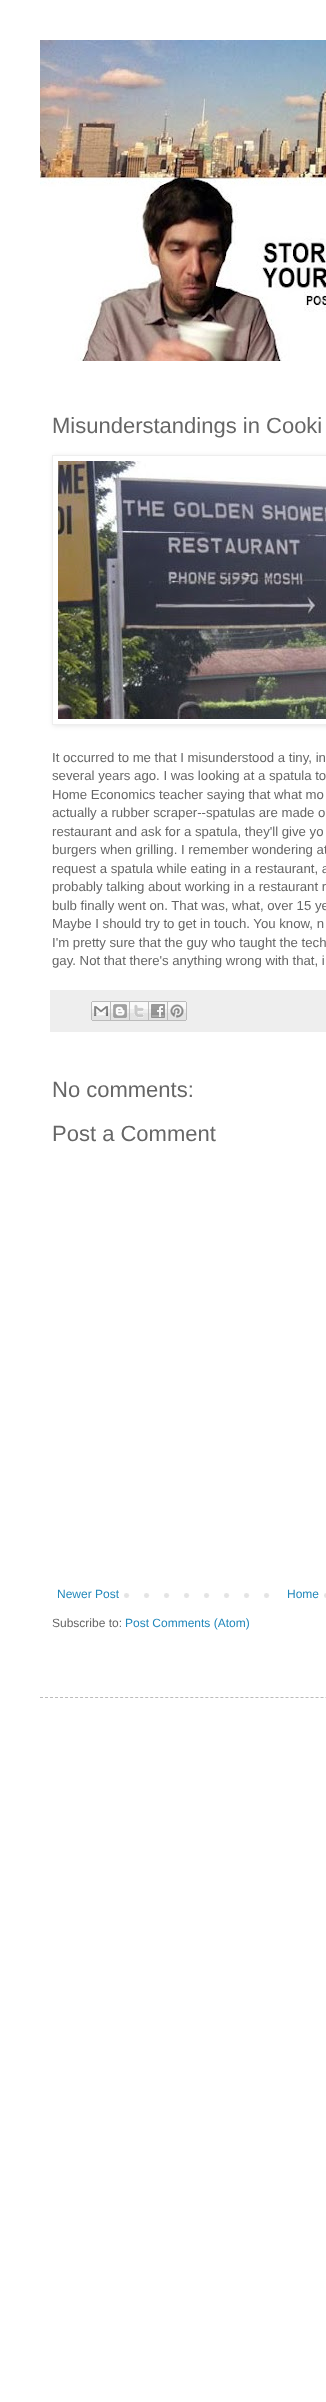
(async () => {
  const canvas = document.querySelector("canvas");
  canvas.width = 326;
  canvas.height = 2402;
  const ctx = canvas.getContext("2d");
  ctx.miterLimit = 4;
  ctx.fontKerning = "normal";
  async function loadImage(src) {
    const img = new Image();
    img.src = src;
    await img.decode();
    return img;
  }
  let path;

  ctx.fillStyle = "#ffffff";
  ctx.fillRect(0, 0, 326, 2402);
  ctx.drawImage(await loadImage("img/1.png"), 40, 40, 286, 321);
  ctx.save();
  path = new Path2D("M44 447H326V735H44ZM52 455H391V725H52Z");
  ctx.clip(path, "evenodd");
  ctx.fillStyle = "rgba(0, 0, 0, 0.1)";
  ctx.filter = "blur(2.5px)";
  ctx.beginPath();
  ctx.rect(53, 456, 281, 270);
  ctx.fill();
  ctx.filter = "none";
  ctx.restore();
  ctx.strokeStyle = "#eeeeee";
  ctx.strokeRect(52.5, 455.5, 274, 269);
  ctx.drawImage(await loadImage("img/2.png"), 58, 461, 268, 258);
  ctx.fillStyle = "#eeeeee";
  ctx.fillRect(50, 990, 276, 42);
  ctx.drawImage(await loadImage("img/3.png"), 91, 1001, 20, 20);
  ctx.drawImage(await loadImage("img/4.png"), 111, 1001, 19, 20);
  ctx.drawImage(await loadImage("img/5.png"), 130, 1001, 19, 20);
  ctx.drawImage(await loadImage("img/6.png"), 149, 1001, 19, 20);
  ctx.drawImage(await loadImage("img/7.png"), 168, 1001, 19, 20);
  ctx.drawImage(await loadImage("img/8.png"), 124, 1593, 202, 5);
  ctx.fillStyle = "#ffffff";
  ctx.fillRect(284, 1593, 26, 5);
  path = new Path2D("M40 1697.5H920");
  ctx.strokeStyle = "#bbbbbb";
  ctx.setLineDash([3, 2.01]);
  ctx.stroke(path);
  ctx.font = "22px Liberation Sans";
  ctx.fillStyle = "#666666";
  ctx.fillText("Misunderstandings in Cooki", 52, 433);
  ctx.font = "13.2px Liberation Sans";
  for (const [text, x, y] of [
    ["It occurred to me that I misunderstood a tiny, in", 52, 762],
    ["several years ago. I was looking at a spatula to", 52, 780],
    ["Home Economics teacher saying that what mo", 52, 799],
    ["actually a rubber scraper--spatulas are made o", 52, 817],
    ["restaurant and ask for a spatula, they'll give yo", 52, 836],
    ["burgers when grilling. I remember wondering at", 52, 854],
    ["request a spatula while eating in a restaurant, a", 52, 873],
    ["probably talking about working in a restaurant r", 52, 891],
    ["bulb finally went on. That was, what, over 15 ye", 52, 910],
    ["Maybe I should try to get in touch. You know, n", 52, 928],
    ["I'm pretty sure that the guy who taught the tech", 52, 947],
    ["gay. Not that there's anything wrong with that, i", 52, 965],
  ]) {
    ctx.fillText(text, x, y);
  }
  ctx.font = "22px Liberation Sans";
  ctx.fillText("No comments:", 52, 1097);
  ctx.fillText("Post a Comment", 52, 1141);
  ctx.font = "12px Liberation Sans";
  ctx.fillStyle = "#2288bb";
  ctx.fillText("Newer Post", 57, 1598);
  ctx.fillText("Home", 287, 1598);
  ctx.fillStyle = "#666666";
  ctx.fillText("Subscribe to:", 52, 1627);
  ctx.fillStyle = "#2288bb";
  ctx.fillText("Post Comments (Atom)", 125, 1627);
})();
